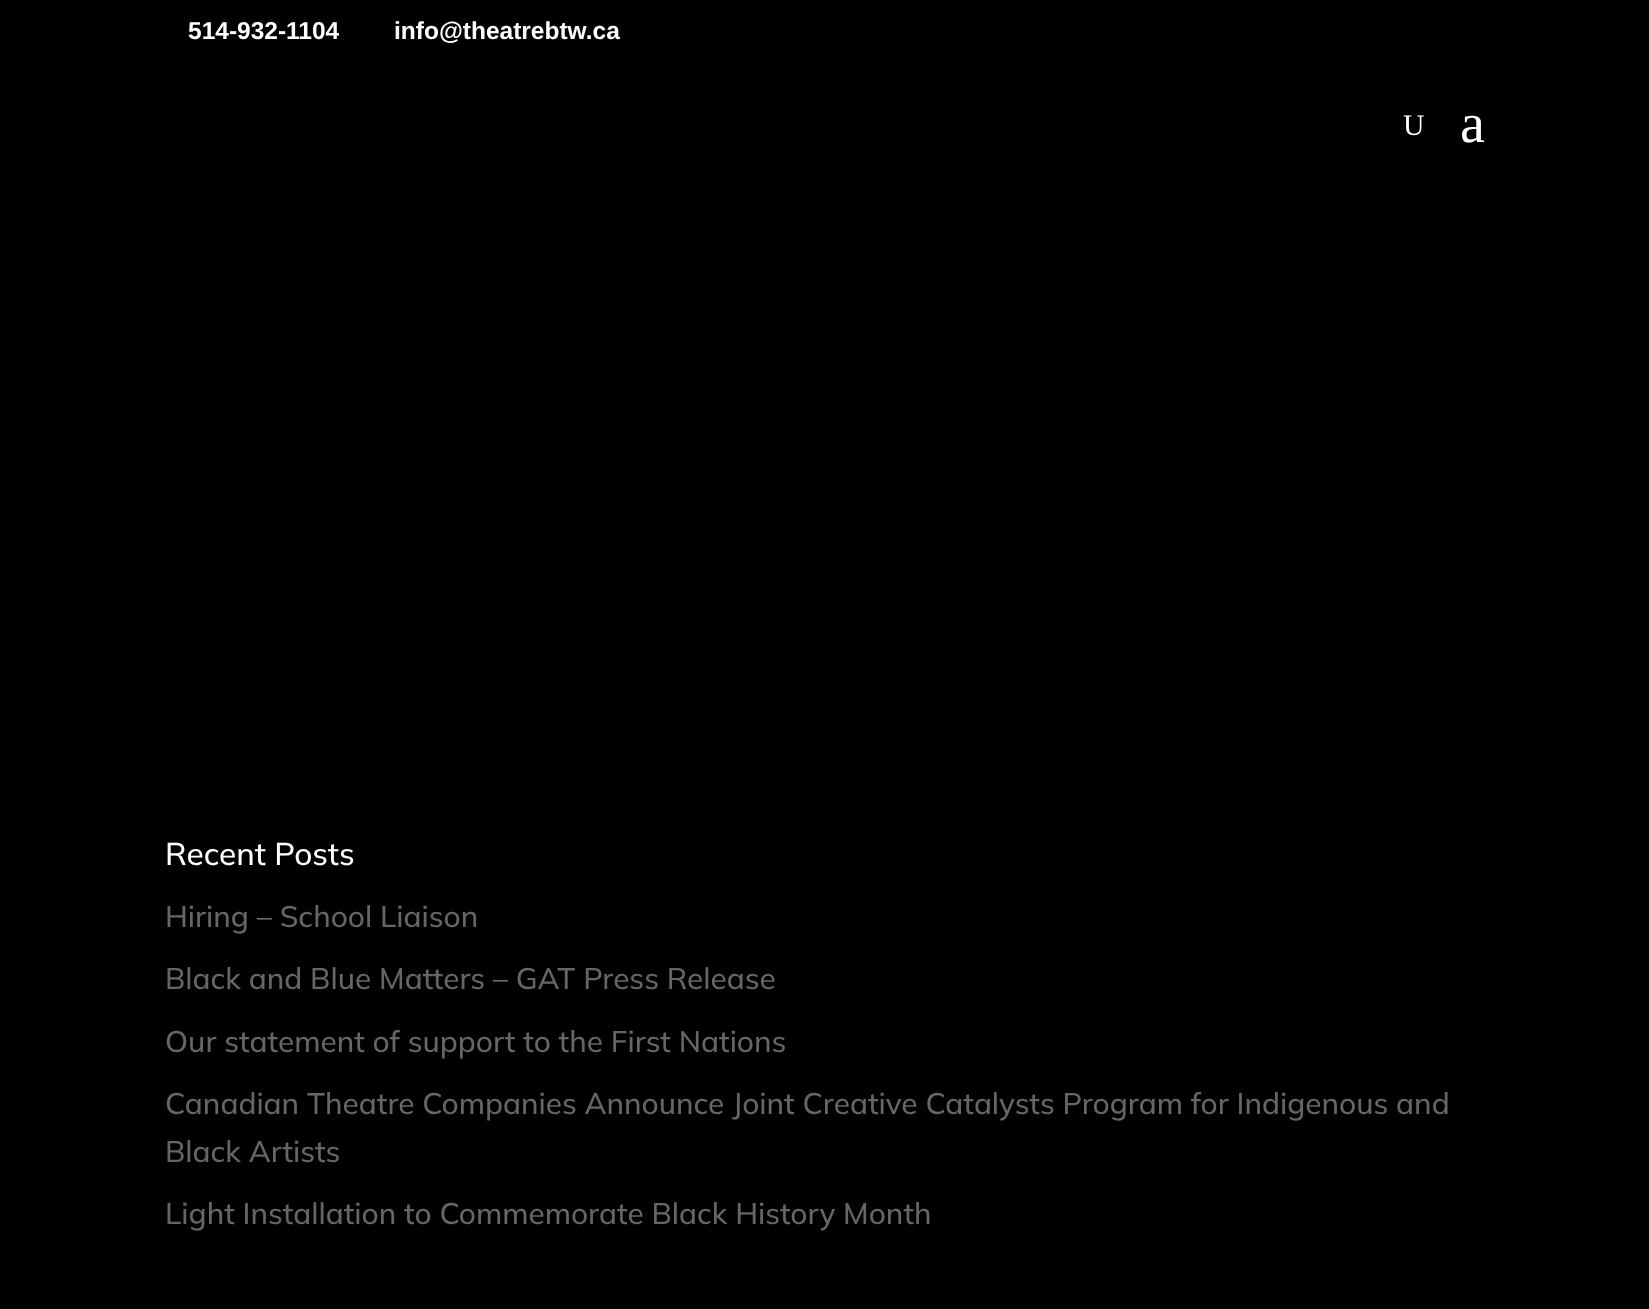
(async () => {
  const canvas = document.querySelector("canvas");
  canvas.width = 1649;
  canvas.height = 1309;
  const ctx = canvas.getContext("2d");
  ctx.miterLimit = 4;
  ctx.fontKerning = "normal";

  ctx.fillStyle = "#000000";
  ctx.fillRect(0, 0, 1649, 1309);
  ctx.font = "bold 24.5px Liberation Sans";
  ctx.fillStyle = "#ffffff";
  ctx.fillText("514-932-1104", 188, 39);
  ctx.fillText("info@theatrebtw.ca", 394, 39);
  ctx.font = "29.75px Liberation Serif";
  ctx.fillText("U", 1403, 135);
  ctx.font = "56px Liberation Serif";
  ctx.fillText("a", 1460, 142);
  ctx.font = "500 31.5px Mulish";
  ctx.fillText("Recent Posts", 165, 865);
  ctx.font = "500 29.75px Mulish";
  ctx.fillStyle = "#666666";
  for (const [text, x, y] of [
    ["Hiring – School Liaison", 165, 927],
    ["Black and Blue Matters – GAT Press Release", 165, 989],
    ["Our statement of support to the First Nations", 165, 1052],
    ["Canadian Theatre Companies Announce Joint Creative Catalysts Program for Indigenous and", 165, 1114],
    ["Black Artists", 165, 1162],
    ["Light Installation to Commemorate Black History Month", 165, 1224],
  ]) {
    ctx.fillText(text, x, y);
  }
})();
